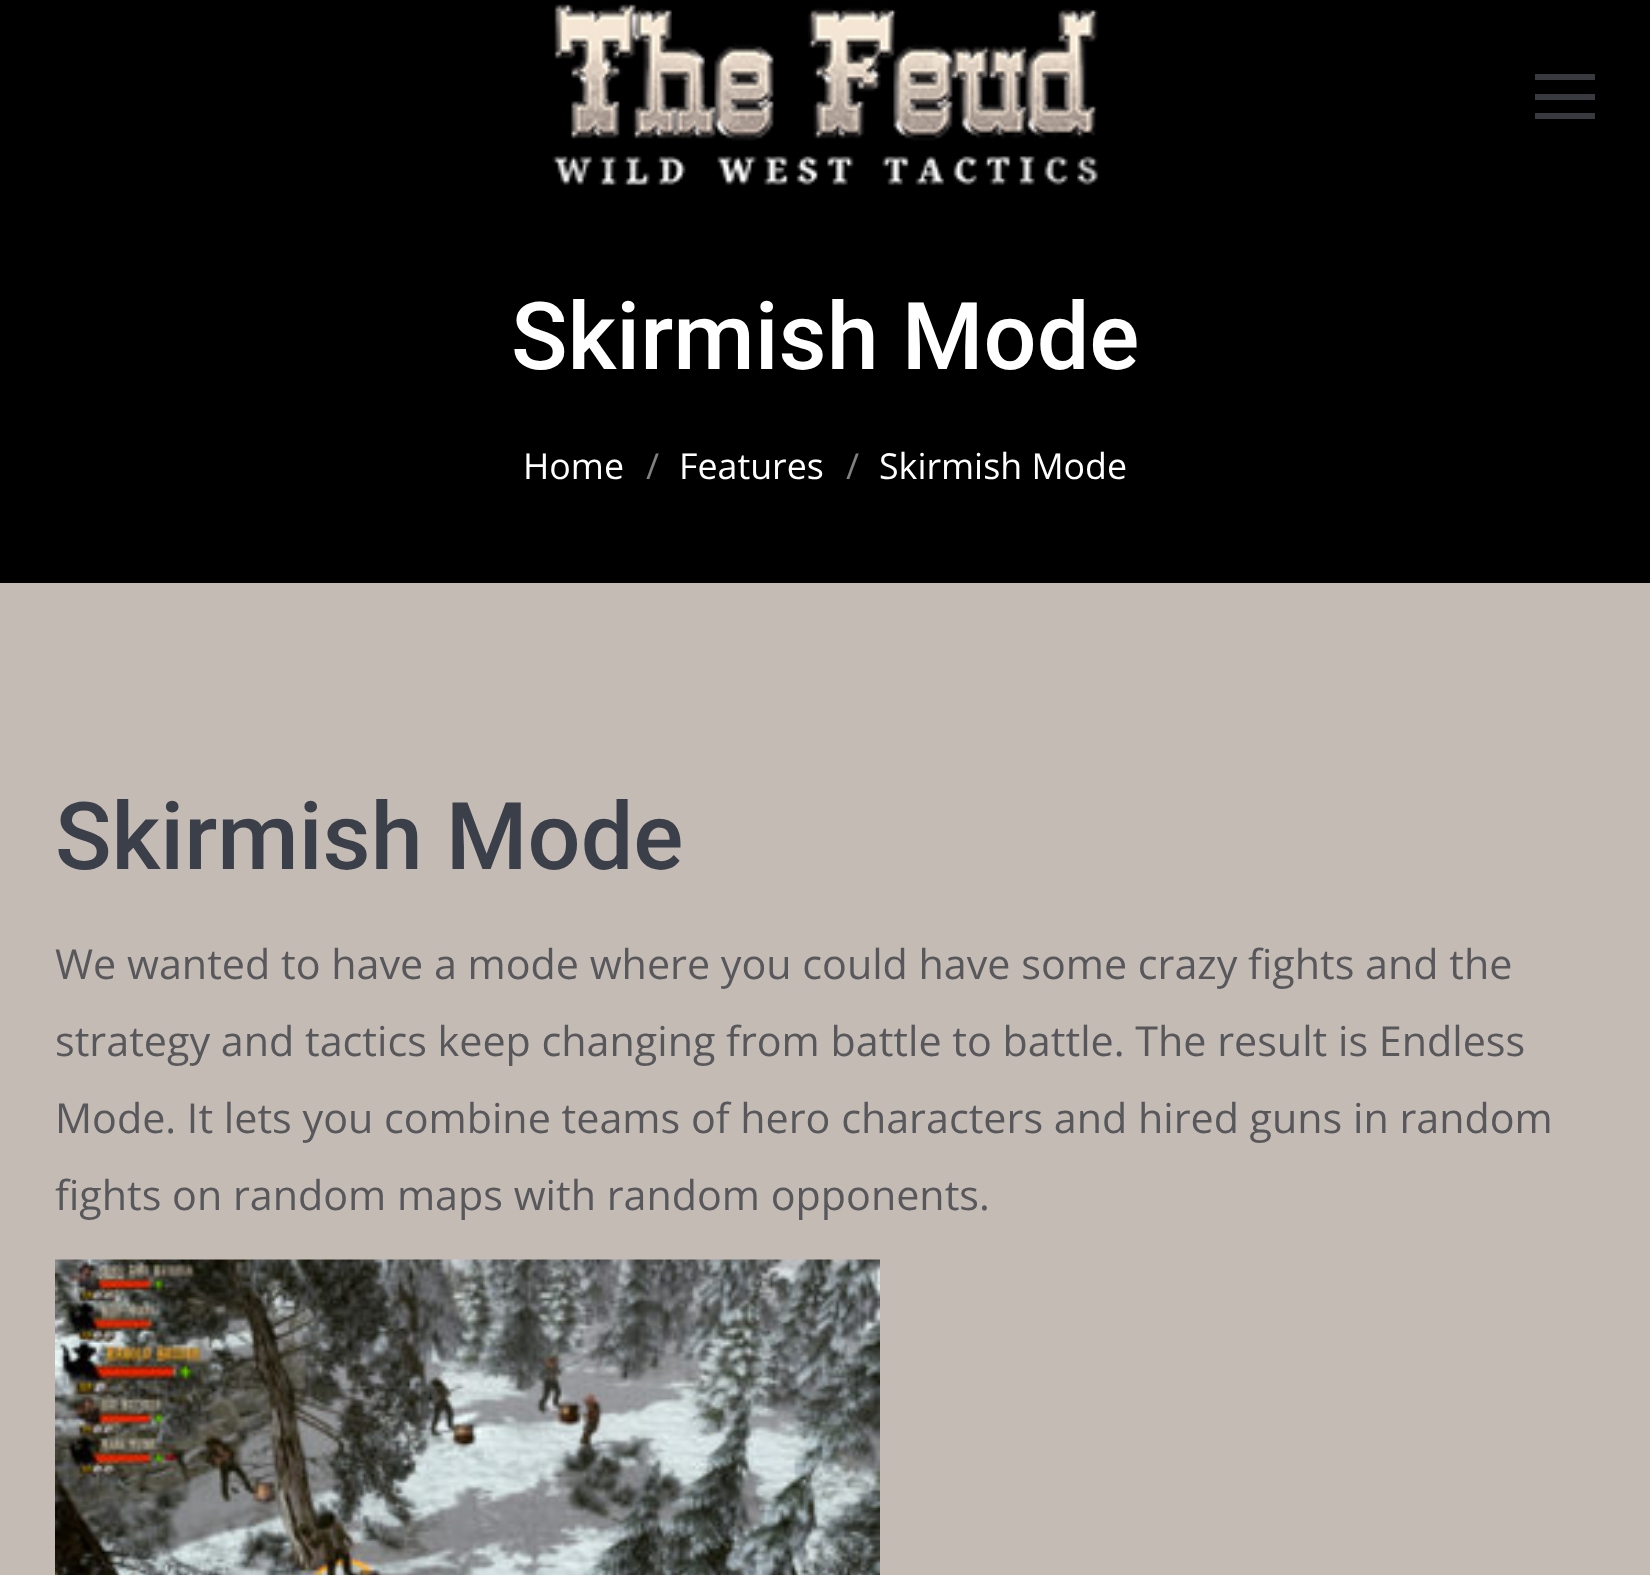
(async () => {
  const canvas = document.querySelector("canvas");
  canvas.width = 1650;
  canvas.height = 1575;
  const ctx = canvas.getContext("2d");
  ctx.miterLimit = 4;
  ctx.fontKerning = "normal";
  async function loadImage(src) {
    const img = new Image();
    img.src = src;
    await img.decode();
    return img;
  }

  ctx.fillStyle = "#c4bcb4";
  ctx.fillRect(0, 0, 1650, 1575);
  ctx.fillStyle = "#000000";
  ctx.fillRect(0, 0, 1650, 583);
  ctx.drawImage(await loadImage("img/1.png"), 552, 3, 547, 183);
  for (const [x, y, w, h, color] of [
    [1535, 94, 60, 6, "#393940"],
    [1535, 74, 60, 6, "#393940"],
    [1535, 113, 60, 6, "#393940"],
  ]) {
    ctx.fillStyle = color;
    ctx.fillRect(x, y, w, h);
  }
  ctx.drawImage(await loadImage("img/2.png"), 55, 1259, 825, 316);
  ctx.font = "500 93.5px Roboto";
  ctx.fillStyle = "#ffffff";
  ctx.fillText("Skirmish Mode", 511, 369);
  ctx.font = "35.75px Open Sans";
  ctx.fillText("Home", 523, 479);
  ctx.fillStyle = "#808080";
  ctx.fillText("/", 646, 479);
  ctx.fillStyle = "#ffffff";
  ctx.fillText("Features", 679, 479);
  ctx.fillStyle = "#808080";
  ctx.fillText("/", 846, 479);
  ctx.fillStyle = "#ffffff";
  ctx.fillText("Skirmish Mode", 879, 479);
  ctx.font = "500 93.5px Roboto";
  ctx.fillStyle = "#3b3f4a";
  ctx.fillText("Skirmish Mode", 55, 869);
  ctx.font = "41.25px Open Sans";
  ctx.fillStyle = "#58585c";
  for (const [text, x, y] of [
    ["We wanted to have a mode where you could have some crazy fights and the", 55, 979],
    ["strategy and tactics keep changing from battle to battle. The result is Endless", 55, 1056],
    ["Mode. It lets you combine teams of hero characters and hired guns in random", 55, 1133],
    ["fights on random maps with random opponents.", 55, 1210],
  ]) {
    ctx.fillText(text, x, y);
  }
})();
